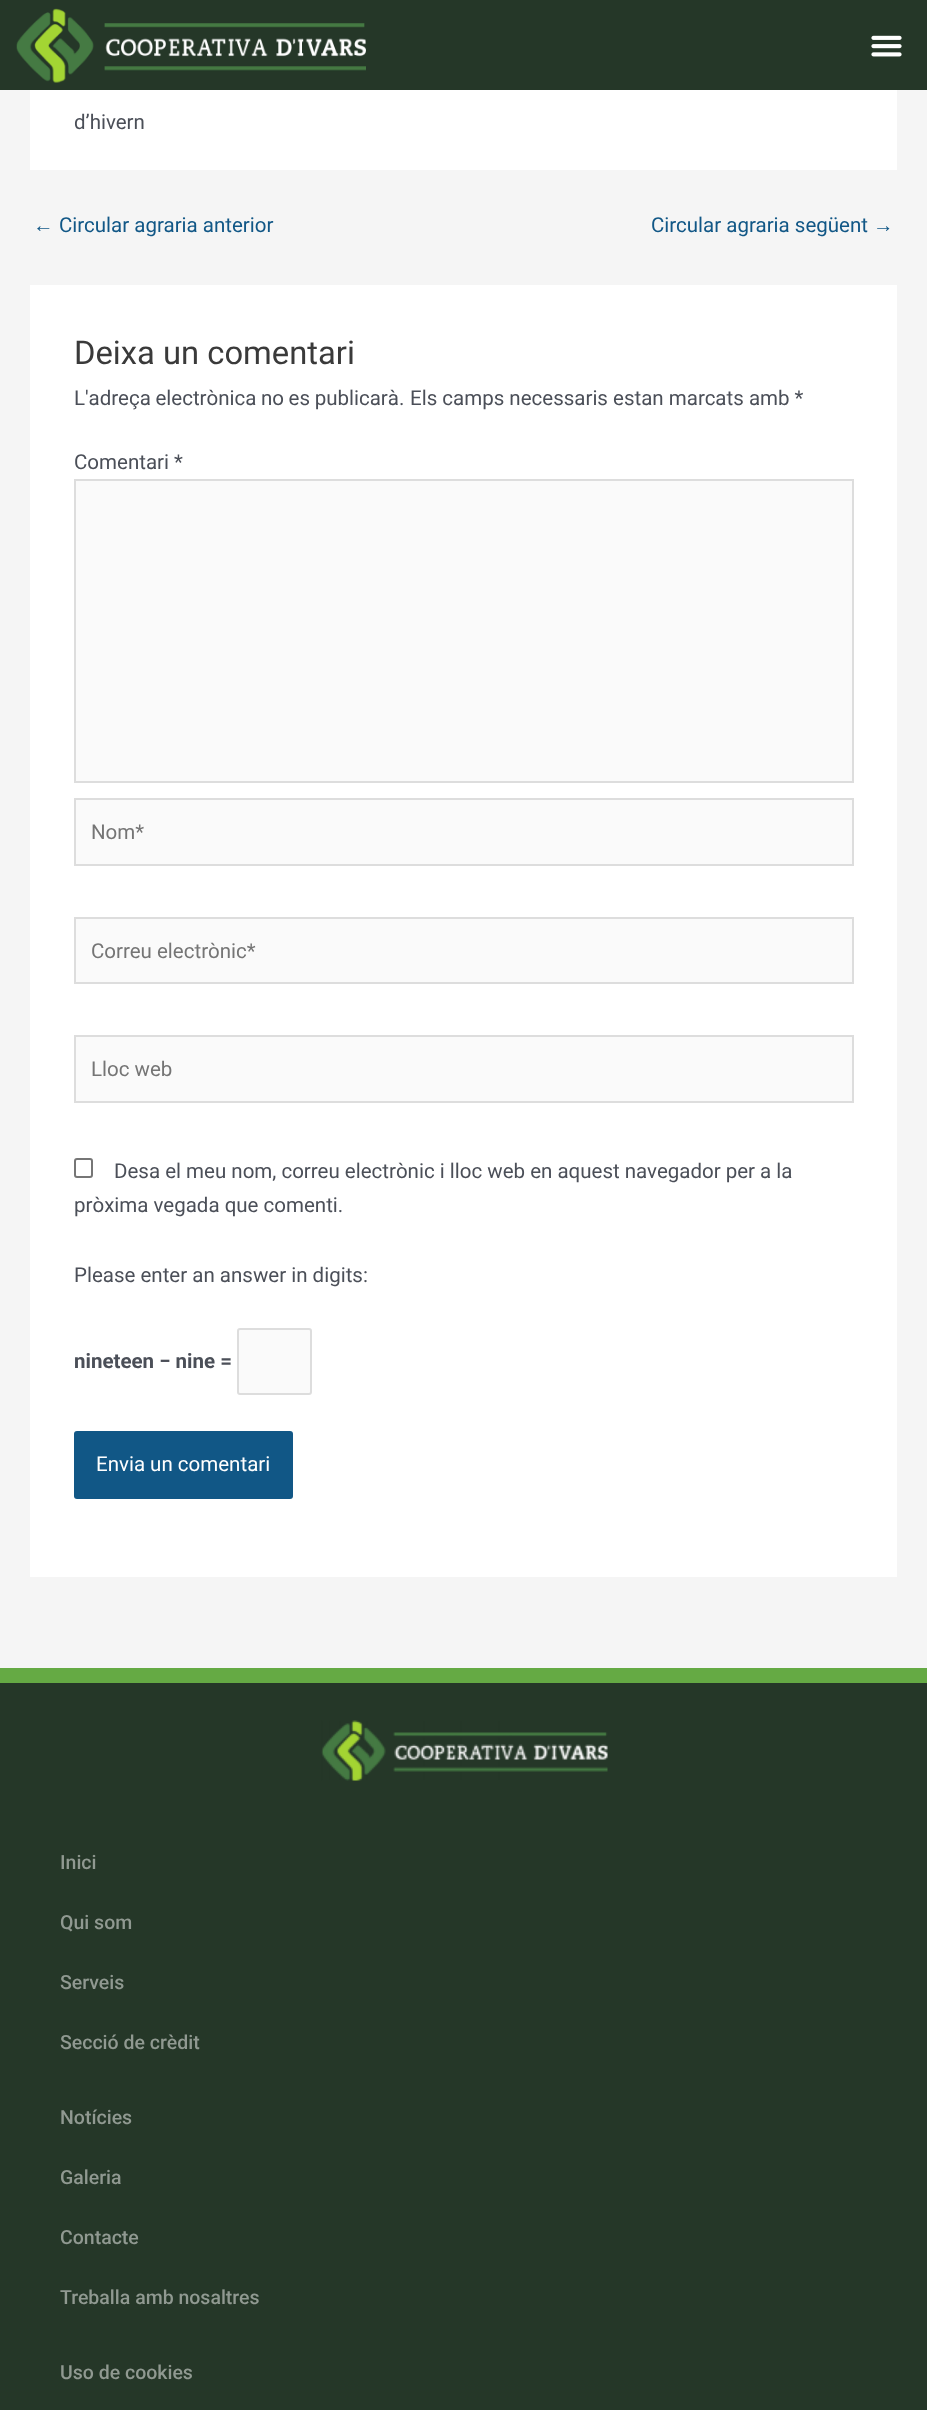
(async () => {
  const canvas = document.querySelector("canvas");
  canvas.width = 927;
  canvas.height = 2410;
  const ctx = canvas.getContext("2d");
  ctx.miterLimit = 4;
  ctx.fontKerning = "normal";
  async function loadImage(src) {
    const img = new Image();
    img.src = src;
    await img.decode();
    return img;
  }

  ctx.fillStyle = "#f5f5f5";
  ctx.fillRect(0, 0, 927, 2410);
  ctx.fillStyle = "#253728";
  ctx.fillRect(0, 0, 927, 90);
  ctx.drawImage(await loadImage("img/1.png"), 16, 8, 350, 75);
  ctx.drawImage(await loadImage("img/2.png"), 871, 35, 31, 22);
  ctx.fillStyle = "#ffffff";
  ctx.fillRect(30, 90, 867, 80);
  ctx.fillRect(30, 285, 867, 1292);
  ctx.fillStyle = "#fafafa";
  ctx.beginPath();
  ctx.rect(75, 480, 778, 302);
  ctx.fill();
  ctx.strokeStyle = "#dddddd";
  ctx.lineWidth = 2;
  ctx.stroke();
  ctx.beginPath();
  ctx.rect(75, 799, 778, 66);
  ctx.fill();
  ctx.stroke();
  ctx.beginPath();
  ctx.rect(75, 918, 778, 65);
  ctx.fill();
  ctx.stroke();
  ctx.beginPath();
  ctx.rect(75, 1036, 778, 66);
  ctx.fill();
  ctx.stroke();
  ctx.beginPath();
  ctx.roundRect(75, 1159, 17, 18, 2);
  ctx.strokeStyle = "#767676";
  ctx.stroke();
  ctx.beginPath();
  ctx.roundRect(238, 1329, 73, 65, 2);
  ctx.fill();
  ctx.strokeStyle = "#dddddd";
  ctx.stroke();
  ctx.fillStyle = "#115786";
  ctx.beginPath();
  ctx.roundRect(74, 1431, 219, 68, 3);
  ctx.fill();
  ctx.fillStyle = "#253728";
  ctx.fillRect(0, 1683, 927, 727);
  ctx.fillStyle = "#65aa44";
  ctx.fillRect(0, 1668, 927, 15);
  ctx.drawImage(await loadImage("img/3.png"), 321, 1720, 287, 61);
  ctx.font = "20.5px Roboto";
  ctx.fillStyle = "#4b4f58";
  ctx.fillText("d’hivern", 74, 129);
  ctx.font = "20.5px Liberation Sans";
  ctx.fillStyle = "#115786";
  ctx.fillText("←", 33, 232);
  ctx.font = "20.5px Roboto";
  ctx.fillText("Circular agraria anterior", 59, 232);
  ctx.fillText("Circular agraria següent", 651, 232);
  ctx.font = "20.5px Liberation Sans";
  ctx.fillText("→", 873, 232);
  ctx.font = "32.75px Roboto";
  ctx.fillStyle = "#3a3a3a";
  ctx.fillText("Deixa un comentari", 74, 364);
  ctx.wordSpacing = "-0.5px";
  ctx.font = "20.5px Roboto";
  ctx.fillStyle = "#4b4f58";
  ctx.fillText("L'adreça electrònica no es publicarà.", 74, 405);
  ctx.wordSpacing = "0px";
  ctx.fillText("Els camps necessaris estan marcats amb *", 410, 405);
  ctx.fillText("Comentari *", 74, 469);
  ctx.fillStyle = "#757575";
  for (const [text, x, y] of [
    ["Nom*", 91, 839],
    ["Correu electrònic*", 91, 958],
    ["Lloc web", 91, 1076],
  ]) {
    ctx.fillText(text, x, y);
  }
  ctx.fillStyle = "#4b4f58";
  for (const [text, x, y] of [
    ["Desa el meu nom, correu electrònic i lloc web en aquest navegador per a la", 114, 1178],
    ["pròxima vegada que comenti.", 74, 1212],
    ["Please enter an answer in digits:", 74, 1282],
  ]) {
    ctx.fillText(text, x, y);
  }
  ctx.font = "bold 20.5px Roboto";
  ctx.fillText("nineteen − nine =", 74, 1368);
  ctx.font = "20.5px Roboto";
  ctx.fillStyle = "#ffffff";
  ctx.fillText("Envia un comentari", 96, 1471);
  ctx.font = "500 19.5px Roboto";
  ctx.fillStyle = "#909991";
  for (const [text, x, y] of [
    ["Inici", 60, 1869],
    ["Qui som", 60, 1929],
    ["Serveis", 60, 1989],
    ["Secció de crèdit", 60, 2049],
    ["Notícies", 60, 2124],
    ["Galeria", 60, 2184],
    ["Contacte", 60, 2244],
    ["Treballa amb nosaltres", 60, 2304],
    ["Uso de cookies", 60, 2379],
  ]) {
    ctx.fillText(text, x, y);
  }
})();
